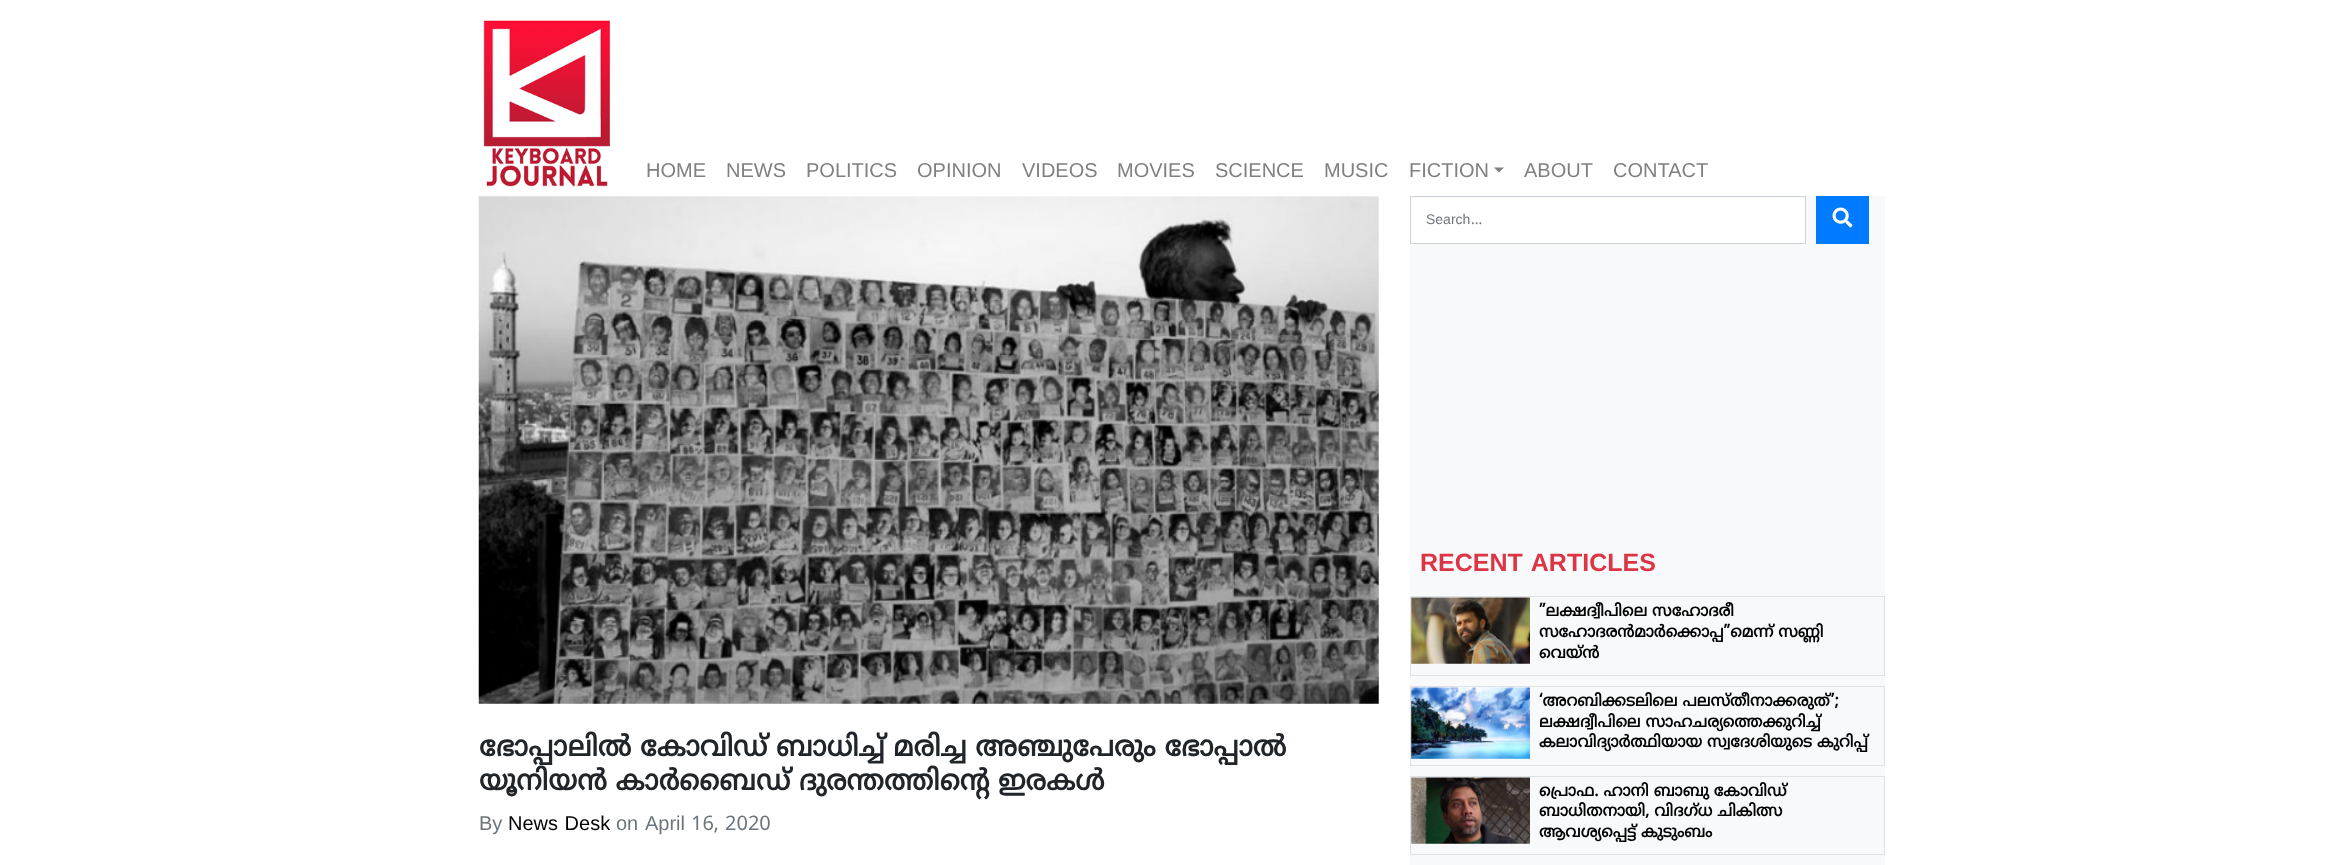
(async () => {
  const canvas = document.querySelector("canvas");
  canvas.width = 2345;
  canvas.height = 865;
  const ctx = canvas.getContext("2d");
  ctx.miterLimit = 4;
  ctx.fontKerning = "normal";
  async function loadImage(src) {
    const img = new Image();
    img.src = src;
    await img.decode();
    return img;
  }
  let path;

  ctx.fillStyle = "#ffffff";
  ctx.fillRect(0, 0, 2345, 865);
  ctx.drawImage(await loadImage("img/1.png"), 483, 20, 127, 167);
  ctx.fillStyle = "#808080";
  path = new Path2D("M1494 167.5H1504L1499 172.5Z");
  ctx.fill(path);
  ctx.drawImage(await loadImage("img/2.png"), 478, 196, 901, 508);
  ctx.fillStyle = "#f8f9fa";
  ctx.fillRect(1410, 196, 475, 669);
  ctx.fillStyle = "#ffffff";
  ctx.fillRect(1411, 198, 394, 45);
  ctx.strokeStyle = "#ced4da";
  ctx.strokeRect(1410.5, 196.5, 395, 47);
  ctx.fillStyle = "#007bff";
  ctx.fillRect(1816, 196, 53, 48);
  ctx.drawImage(await loadImage("img/3.png"), 1832, 207, 21, 21);
  ctx.strokeStyle = "#dee2e6";
  ctx.strokeRect(1410.5, 596.5, 474, 79);
  ctx.drawImage(await loadImage("img/4.png"), 1411, 597, 119, 67);
  ctx.strokeRect(1410.5, 686.5, 474, 79);
  ctx.drawImage(await loadImage("img/5.png"), 1411, 687, 119, 72);
  ctx.strokeRect(1410.5, 776.5, 474, 78);
  ctx.drawImage(await loadImage("img/6.png"), 1411, 777, 119, 67);
  ctx.font = "20px Liberation Sans";
  ctx.fillStyle = "#808080";
  for (const [text, x, y] of [
    ["HOME", 646, 177],
    ["NEWS", 726, 177],
    ["POLITICS", 806, 177],
    ["OPINION", 917, 177],
    ["VIDEOS", 1022, 177],
    ["MOVIES", 1117, 177],
    ["SCIENCE", 1215, 177],
    ["MUSIC", 1324, 177],
    ["FICTION", 1409, 177],
    ["ABOUT", 1524, 177],
    ["CONTACT", 1613, 177],
  ]) {
    ctx.fillText(text, x, y);
  }
  ctx.font = "bold 28px Noto Sans Malayalam";
  ctx.fillStyle = "#212529";
  ctx.fillText("ഭോപ്പാലിൽ കോവിഡ് ബാധിച്ച് മരിച്ച അഞ്ചുപേരും ഭോപ്പാൽ", 479, 756);
  ctx.fillText("യൂനിയൻ കാർബെെഡ് ദുരന്തത്തിന്‍റെ ഇരകള്‍", 479, 790);
  ctx.font = "20px Liberation Sans";
  ctx.fillStyle = "#6c757d";
  ctx.fillText("By", 479, 830);
  ctx.wordSpacing = "1px";
  ctx.fillStyle = "#000000";
  ctx.fillText("News Desk", 508, 830);
  ctx.wordSpacing = "0px";
  ctx.fillStyle = "#6c757d";
  ctx.fillText("on", 616, 830);
  ctx.fillText("April", 645, 830);
  ctx.font = "20px Noto Sans Malayalam";
  ctx.fillText("16, 2020", 691, 830);
  ctx.font = "14px Liberation Sans";
  ctx.fillText("Search", 1426, 224);
  ctx.font = "14px Noto Sans Malayalam";
  ctx.fillText("...", 1471, 224);
  ctx.wordSpacing = "2px";
  ctx.font = "bold 25px Liberation Sans";
  ctx.fillStyle = "#dc3545";
  ctx.fillText("RECENT ARTICLES", 1420, 571);
  ctx.wordSpacing = "0px";
  ctx.font = "bold 16px Noto Sans Malayalam";
  ctx.fillStyle = "#000000";
  for (const [text, x, y] of [
    ["”ലക്ഷദ്വീപിലെ സഹോദരീ", 1539, 616],
    ["സഹോദരൻമാർക്കൊപ്പ”മെന്ന് സണ്ണി", 1539, 637],
    ["വെയ്ൻ", 1539, 658],
    ["‘അറബിക്കടലിലെ പലസ്തീനാക്കരുത്’;", 1539, 706],
    ["ലക്ഷദ്വീപിലെ സാഹചര്യത്തെക്കുറിച്ച്", 1539, 727],
    ["കലാവിദ്യാര്‍ത്ഥിയായ സ്വദേശിയുടെ കുറിപ്പ്", 1539, 747],
    ["പ്രൊഫ. ഹാനി ബാബു കോവിഡ്", 1539, 796],
    ["ബാധിതനായി, വിദഗ്ധ ചികിത്സ", 1539, 816],
    ["ആവശ്യപ്പെട്ട് കുടുംബം", 1539, 837],
  ]) {
    ctx.fillText(text, x, y);
  }
})();
